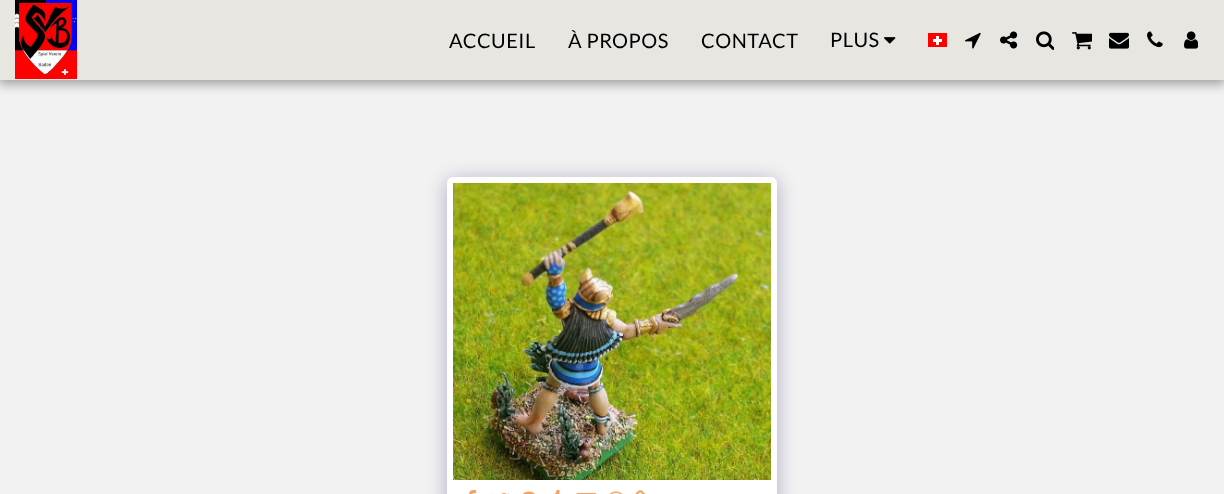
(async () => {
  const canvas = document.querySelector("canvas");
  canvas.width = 1224;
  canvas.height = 494;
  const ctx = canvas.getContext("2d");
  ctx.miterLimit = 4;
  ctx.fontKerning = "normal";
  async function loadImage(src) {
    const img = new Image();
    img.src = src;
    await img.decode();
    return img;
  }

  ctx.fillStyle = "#f2f2f2";
  ctx.fillRect(0, 0, 1224, 494);
  ctx.fillStyle = "rgba(0, 0, 0, 0.35)";
  ctx.filter = "blur(6px)";
  ctx.beginPath();
  ctx.rect(-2, 0, 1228, 84);
  ctx.fill();
  ctx.filter = "none";
  ctx.fillStyle = "#e7e6e1";
  ctx.fillRect(0, 0, 1224, 80);
  ctx.drawImage(await loadImage("img/1.png"), 15, 0, 62, 79);
  ctx.drawImage(await loadImage("img/2.png"), 884, 37, 12, 7);
  for (const [x, y, w, h, color] of [
    [928, 33, 19, 14, "#ff0000"],
    [933, 39, 9, 3, "#ffffff"],
    [936, 36, 3, 9, "#ffffff"],
  ]) {
    ctx.fillStyle = color;
    ctx.fillRect(x, y, w, h);
  }
  ctx.drawImage(await loadImage("img/3.png"), 965, 32, 16, 17);
  ctx.drawImage(await loadImage("img/4.png"), 1000, 31, 18, 18);
  ctx.drawImage(await loadImage("img/5.png"), 1036, 31, 18, 19);
  ctx.drawImage(await loadImage("img/6.png"), 1072, 32, 20, 18);
  ctx.drawImage(await loadImage("img/7.png"), 1109, 32, 20, 17);
  ctx.drawImage(await loadImage("img/8.png"), 1147, 31, 16, 17);
  ctx.drawImage(await loadImage("img/9.png"), 1184, 31, 14, 18);
  ctx.fillStyle = "rgba(77, 63, 122, 0.4)";
  ctx.filter = "blur(10px)";
  ctx.beginPath();
  ctx.roundRect(447, 180, 330, 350, 6);
  ctx.fill();
  ctx.filter = "none";
  ctx.fillStyle = "#ffffff";
  ctx.beginPath();
  ctx.roundRect(447, 177, 330, 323, 6);
  ctx.fill();
  ctx.drawImage(await loadImage("img/10.png"), 453, 183, 318, 297);
  ctx.drawImage(await loadImage("img/11.png"), 469, 490, 8, 4);
  ctx.drawImage(await loadImage("img/12.png"), 492, 493, 17, 1);
  ctx.drawImage(await loadImage("img/13.png"), 522, 491, 13, 3);
  ctx.drawImage(await loadImage("img/14.png"), 555, 490, 5, 4);
  ctx.drawImage(await loadImage("img/15.png"), 576, 492, 21, 2);
  ctx.drawImage(await loadImage("img/16.png"), 610, 491, 12, 3);
  ctx.drawImage(await loadImage("img/17.png"), 635, 490, 11, 4);
  ctx.letterSpacing = "0.5px";
  ctx.font = "20px Lato";
  ctx.fillStyle = "#000000";
  for (const [text, x, y] of [
    ["ACCUEIL", 449, 48],
    ["À PROPOS", 568, 48],
    ["CONTACT", 701, 48],
    ["PLUS", 830, 47],
  ]) {
    ctx.fillText(text, x, y);
  }
})();
